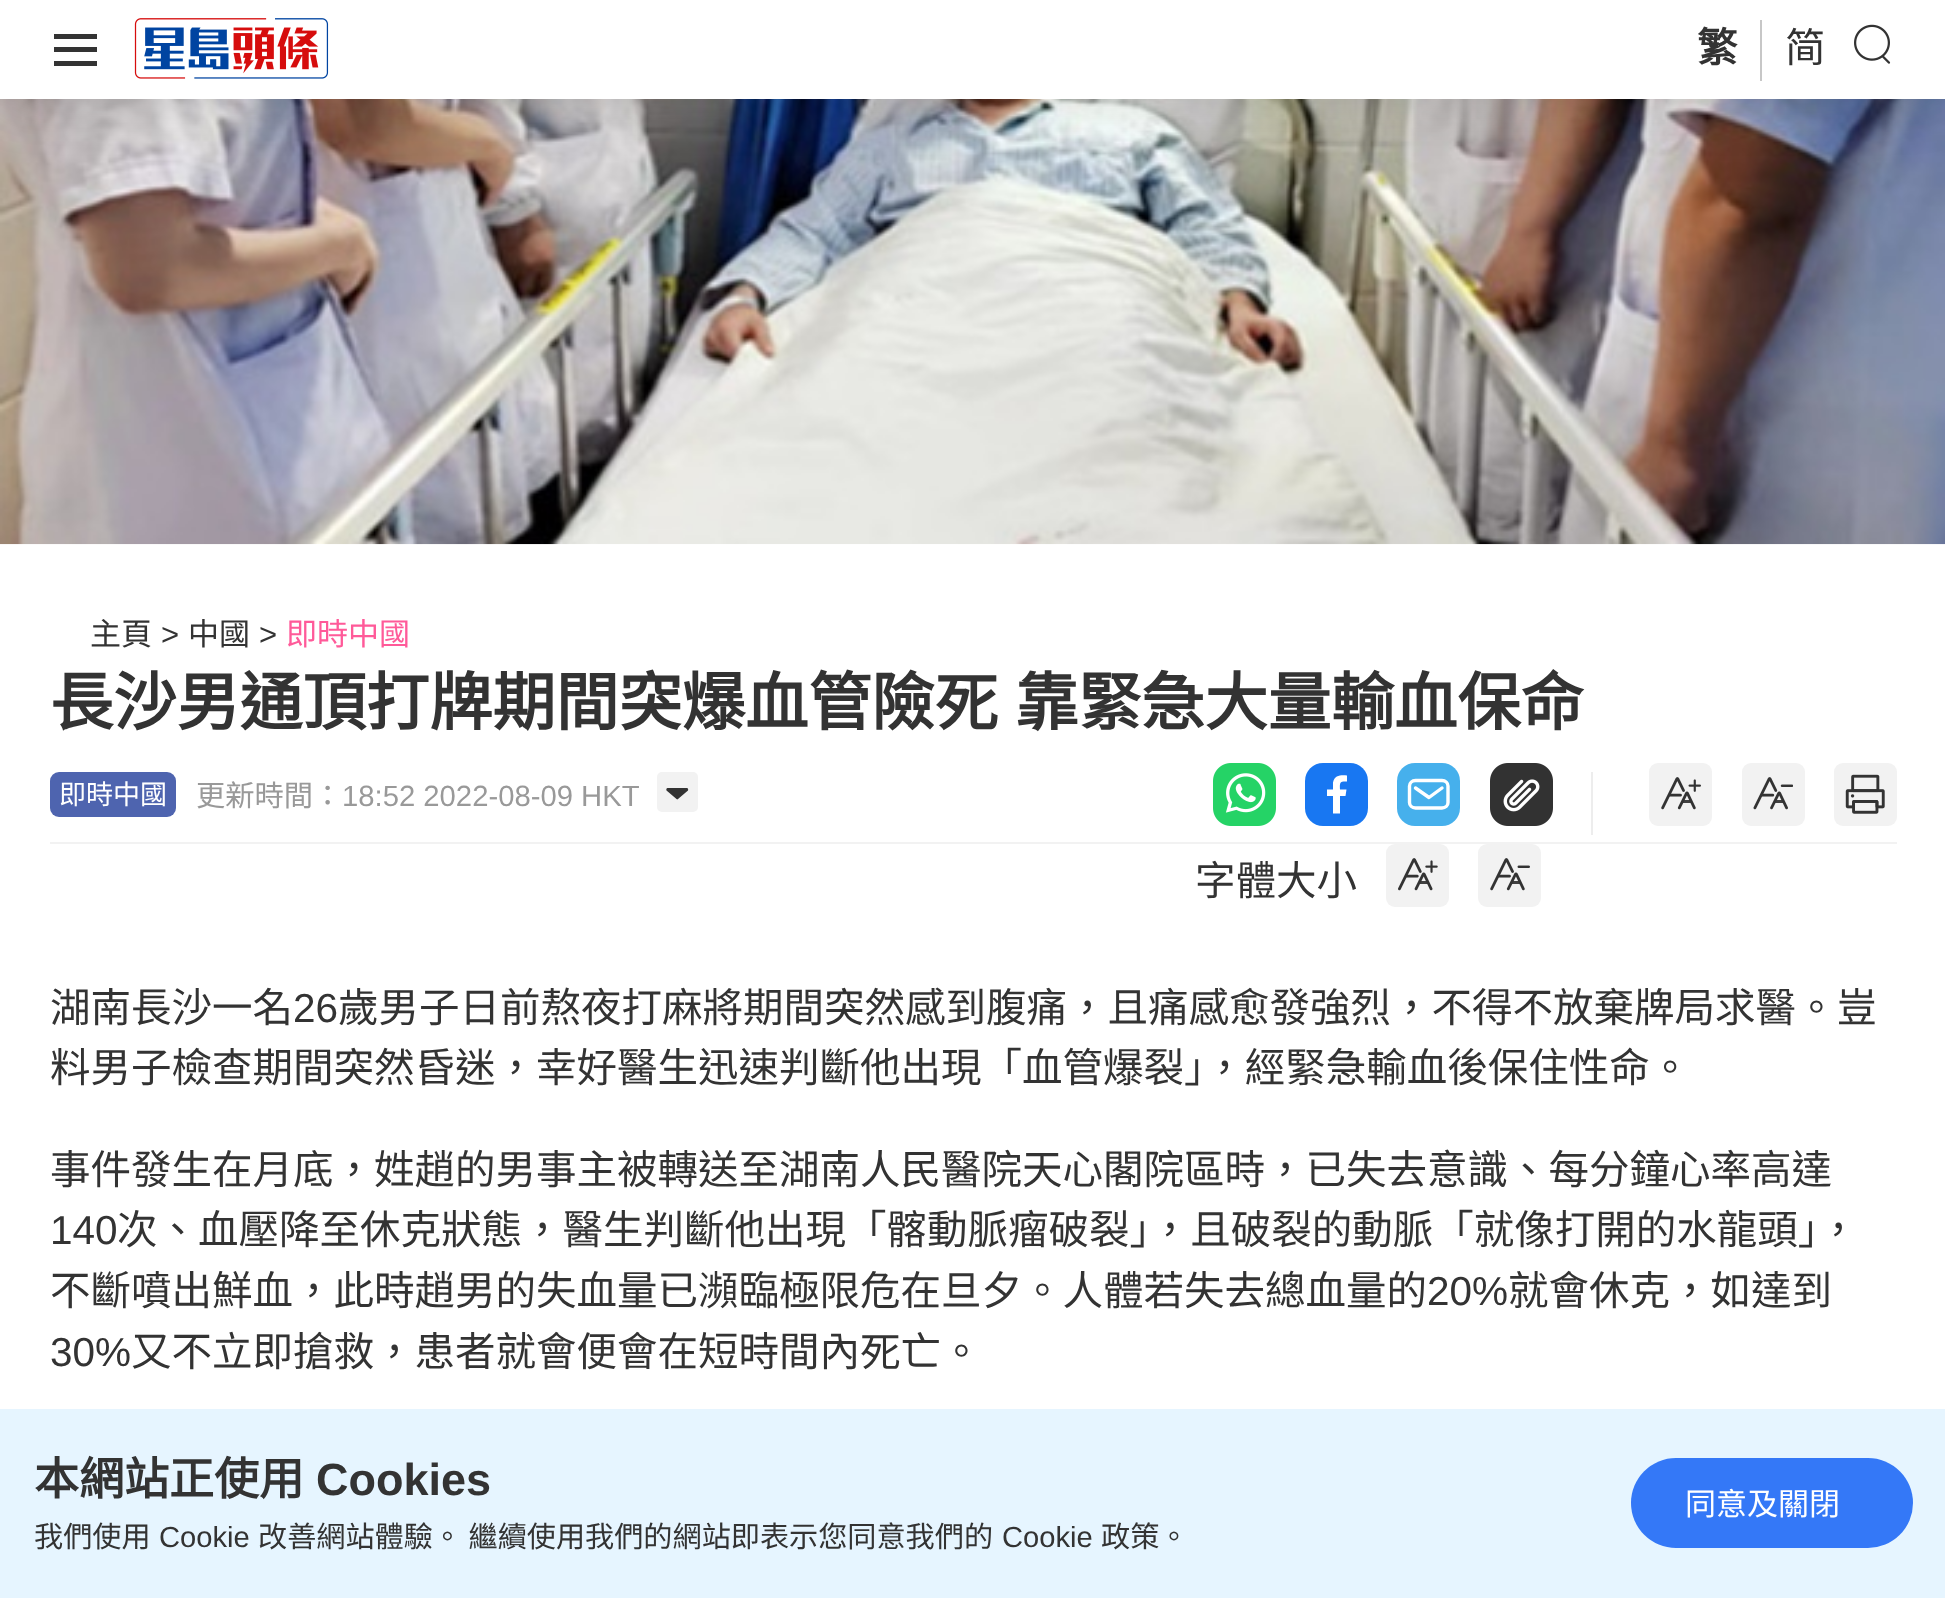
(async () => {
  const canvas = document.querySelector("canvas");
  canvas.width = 1945;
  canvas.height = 1598;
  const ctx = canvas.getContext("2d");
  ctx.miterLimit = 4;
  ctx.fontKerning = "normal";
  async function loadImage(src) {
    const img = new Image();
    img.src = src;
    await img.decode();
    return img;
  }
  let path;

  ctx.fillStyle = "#ffffff";
  ctx.fillRect(0, 0, 1945, 1598);
  ctx.drawImage(await loadImage("img/3.png"), 0, 99, 1945, 446);
  ctx.fillStyle = "rgba(0, 0, 0, 0.15)";
  ctx.filter = "blur(27px)";
  ctx.beginPath();
  ctx.rect(0, 2, 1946, 99);
  ctx.fill();
  ctx.filter = "none";
  for (const [x, y, w, h, color] of [
    [0, 0, 1945, 99, "#ffffff"],
    [54, 34, 43, 5, "#333333"],
    [54, 47, 43, 5, "#333333"],
    [54, 61, 43, 5, "#333333"],
  ]) {
    ctx.fillStyle = color;
    ctx.fillRect(x, y, w, h);
  }
  ctx.drawImage(await loadImage("img/1.png"), 134, 18, 195, 61);
  ctx.fillStyle = "#c7c7c7";
  ctx.fillRect(1760, 20, 2, 61);
  ctx.drawImage(await loadImage("img/2.png"), 1854, 24, 37, 40);
  ctx.fillStyle = "#f2f2f2";
  ctx.fillRect(50, 842, 1847, 2);
  ctx.fillStyle = "#4e64af";
  ctx.beginPath();
  ctx.roundRect(50, 772, 126, 45, 9);
  ctx.fill();
  ctx.fillStyle = "#f2f2f2";
  ctx.beginPath();
  ctx.roundRect(657, 772, 41, 40, 5);
  ctx.fill();
  ctx.fillStyle = "#333333";
  path = new Path2D("M676.5 799C677 799.5 677.5 799.5 678 799L688 790.5C688.5 789.5 688 788 687 788H667.5C666.5 788 666 789.5 666.5 790.5Z");
  ctx.fill(path);
  ctx.drawImage(await loadImage("img/4.png"), 1213, 763, 63, 63);
  ctx.fillStyle = "#1877f2";
  ctx.beginPath();
  ctx.roundRect(1305, 763, 63, 63, 18);
  ctx.fill();
  ctx.fillStyle = "#ffffff";
  path = new Path2D("M1343.5 781.5H1347V775.5C1341 775 1334.5 775 1333 782.5V789.5H1327V796H1333V813.5H1340V796H1345.5L1346.5 789.5H1340C1340 786 1339 781.5 1343.5 781.5Z");
  ctx.fill(path);
  ctx.fillStyle = "#46b0ec";
  ctx.beginPath();
  ctx.roundRect(1397, 763, 63, 63, 18);
  ctx.fill();
  path = new Path2D("M1442 780.5H1415.5C1412 780.5 1409.5 783 1409.5 786V802.5C1409.5 805.5 1412 808 1415.5 808H1442C1445.5 808 1448 805.5 1448 802.5V786C1448 783 1445.5 780.5 1442 780.5Z");
  ctx.strokeStyle = "#ffffff";
  ctx.lineWidth = 3.4;
  ctx.stroke(path);
  path = new Path2D("M1415.5 788L1429 797.5L1442 788");
  ctx.lineCap = "round";
  ctx.lineJoin = "round";
  ctx.stroke(path);
  ctx.drawImage(await loadImage("img/5.png"), 1490, 763, 63, 63);
  ctx.fillStyle = "#ededed";
  ctx.fillRect(1591, 772, 2, 63);
  ctx.fillStyle = "#f2f2f2";
  ctx.beginPath();
  ctx.roundRect(1649, 763, 63, 63, 9);
  ctx.fill();
  ctx.drawImage(await loadImage("img/6.png"), 1661, 777, 40, 33);
  ctx.beginPath();
  ctx.roundRect(1742, 763, 63, 63, 9);
  ctx.fill();
  ctx.drawImage(await loadImage("img/7.png"), 1753, 777, 40, 33);
  ctx.beginPath();
  ctx.roundRect(1834, 763, 63, 63, 9);
  ctx.fill();
  ctx.drawImage(await loadImage("img/8.png"), 1845, 774, 40, 40);
  ctx.beginPath();
  ctx.roundRect(1386, 844, 63, 63, 9);
  ctx.fill();
  ctx.drawImage(await loadImage("img/9.png"), 1398, 858, 40, 33);
  ctx.beginPath();
  ctx.roundRect(1478, 844, 63, 63, 9);
  ctx.fill();
  ctx.drawImage(await loadImage("img/10.png"), 1490, 858, 40, 33);
  ctx.fillStyle = "#e6f5ff";
  ctx.fillRect(0, 1409, 1945, 189);
  ctx.fillStyle = "#3478f7";
  ctx.beginPath();
  ctx.roundRect(1631, 1458, 282, 90, 45);
  ctx.fill();
  ctx.font = "bold 40.5px Noto Sans CJK HK";
  ctx.fillStyle = "#333333";
  ctx.fillText("繁", 1697, 62);
  ctx.font = "40.5px Noto Sans CJK HK";
  ctx.fillText("简", 1785, 62);
  ctx.font = "31px Noto Sans CJK HK";
  ctx.fillText("主頁", 90, 645);
  ctx.font = "31px Liberation Sans";
  ctx.fillText(">", 161, 645);
  ctx.font = "31px Noto Sans CJK HK";
  ctx.fillText("中國", 188, 645);
  ctx.font = "31px Liberation Sans";
  ctx.fillText(">", 259, 645);
  ctx.font = "31px Noto Sans CJK HK";
  ctx.fillStyle = "#ff5a99";
  ctx.fillText("即時中國", 286, 645);
  ctx.wordSpacing = "3px";
  ctx.font = "bold 63.2px Noto Sans CJK HK";
  ctx.fillStyle = "#333333";
  ctx.fillText("長沙男通頂打牌期間突爆血管險死 靠緊急大量輸血保命", 50, 725);
  ctx.wordSpacing = "0px";
  ctx.font = "27px Noto Sans CJK HK";
  ctx.fillStyle = "#ffffff";
  ctx.fillText("即時中國", 59, 804);
  ctx.font = "29.25px Noto Sans CJK HK";
  ctx.fillStyle = "#999999";
  ctx.fillText("更新時間：", 196, 806);
  ctx.font = "29.25px Liberation Sans";
  ctx.fillText("18:52 2022-08-09 HKT", 342, 806);
  ctx.font = "40.5px Noto Sans CJK HK";
  ctx.fillStyle = "#333333";
  ctx.fillText("字體大小", 1195, 895);
  ctx.fillText("湖南長沙一名", 50, 1022);
  ctx.font = "40.5px Liberation Sans";
  ctx.fillText("26", 293, 1022);
  ctx.font = "40.5px Noto Sans CJK HK";
  for (const [text, x, y] of [
    ["歲男子日前熬夜打麻將期間突然感到腹痛，且痛感愈發強烈，不得不放棄牌局求醫。豈", 338, 1022],
    ["料男子檢查期間突然昏迷，幸好醫生迅速判斷他出現「血管爆裂」，經緊急輸血後保住性命。", 50, 1082],
    ["事件發生在月底，姓趙的男事主被轉送至湖南人民醫院天心閣院區時，已失去意識、每分鐘心率高達", 50, 1184],
  ]) {
    ctx.fillText(text, x, y);
  }
  ctx.font = "40.5px Liberation Sans";
  ctx.fillText("140", 50, 1244);
  ctx.font = "40.5px Noto Sans CJK HK";
  ctx.fillText("次、血壓降至休克狀態，醫生判斷他出現「髂動脈瘤破裂」，且破裂的動脈「就像打開的水龍頭」，", 117, 1244);
  ctx.fillText("不斷噴出鮮血，此時趙男的失血量已瀕臨極限危在旦夕。人體若失去總血量的", 50, 1305);
  ctx.font = "40.5px Liberation Sans";
  ctx.fillText("20%", 1427, 1305);
  ctx.font = "40.5px Noto Sans CJK HK";
  ctx.fillText("就會休克，如達到", 1508, 1305);
  ctx.font = "40.5px Liberation Sans";
  ctx.fillText("30%", 50, 1366);
  ctx.font = "40.5px Noto Sans CJK HK";
  ctx.fillText("又不立即搶救，患者就會便會在短時間內死亡。", 131, 1366);
  ctx.font = "bold 45px Noto Sans CJK HK";
  ctx.fillText("本網站正使用", 34, 1495);
  ctx.font = "bold 45px Liberation Sans";
  ctx.fillText("Cookies", 316, 1495);
  ctx.font = "29.15px Noto Sans CJK HK";
  ctx.fillText("我們使用", 34, 1547);
  ctx.font = "29.15px Liberation Sans";
  ctx.fillText("Cookie", 159, 1547);
  ctx.font = "29.15px Noto Sans CJK HK";
  ctx.fillText("改善網站體驗。 繼續使用我們的網站即表示您同意我們的", 258, 1547);
  ctx.font = "29.15px Liberation Sans";
  ctx.fillText("Cookie", 1002, 1547);
  ctx.font = "29.15px Noto Sans CJK HK";
  ctx.fillText("政策。", 1101, 1547);
  ctx.font = "31px Noto Sans CJK HK";
  ctx.fillStyle = "#ffffff";
  ctx.fillText("同意及關閉", 1685, 1515);
})();
